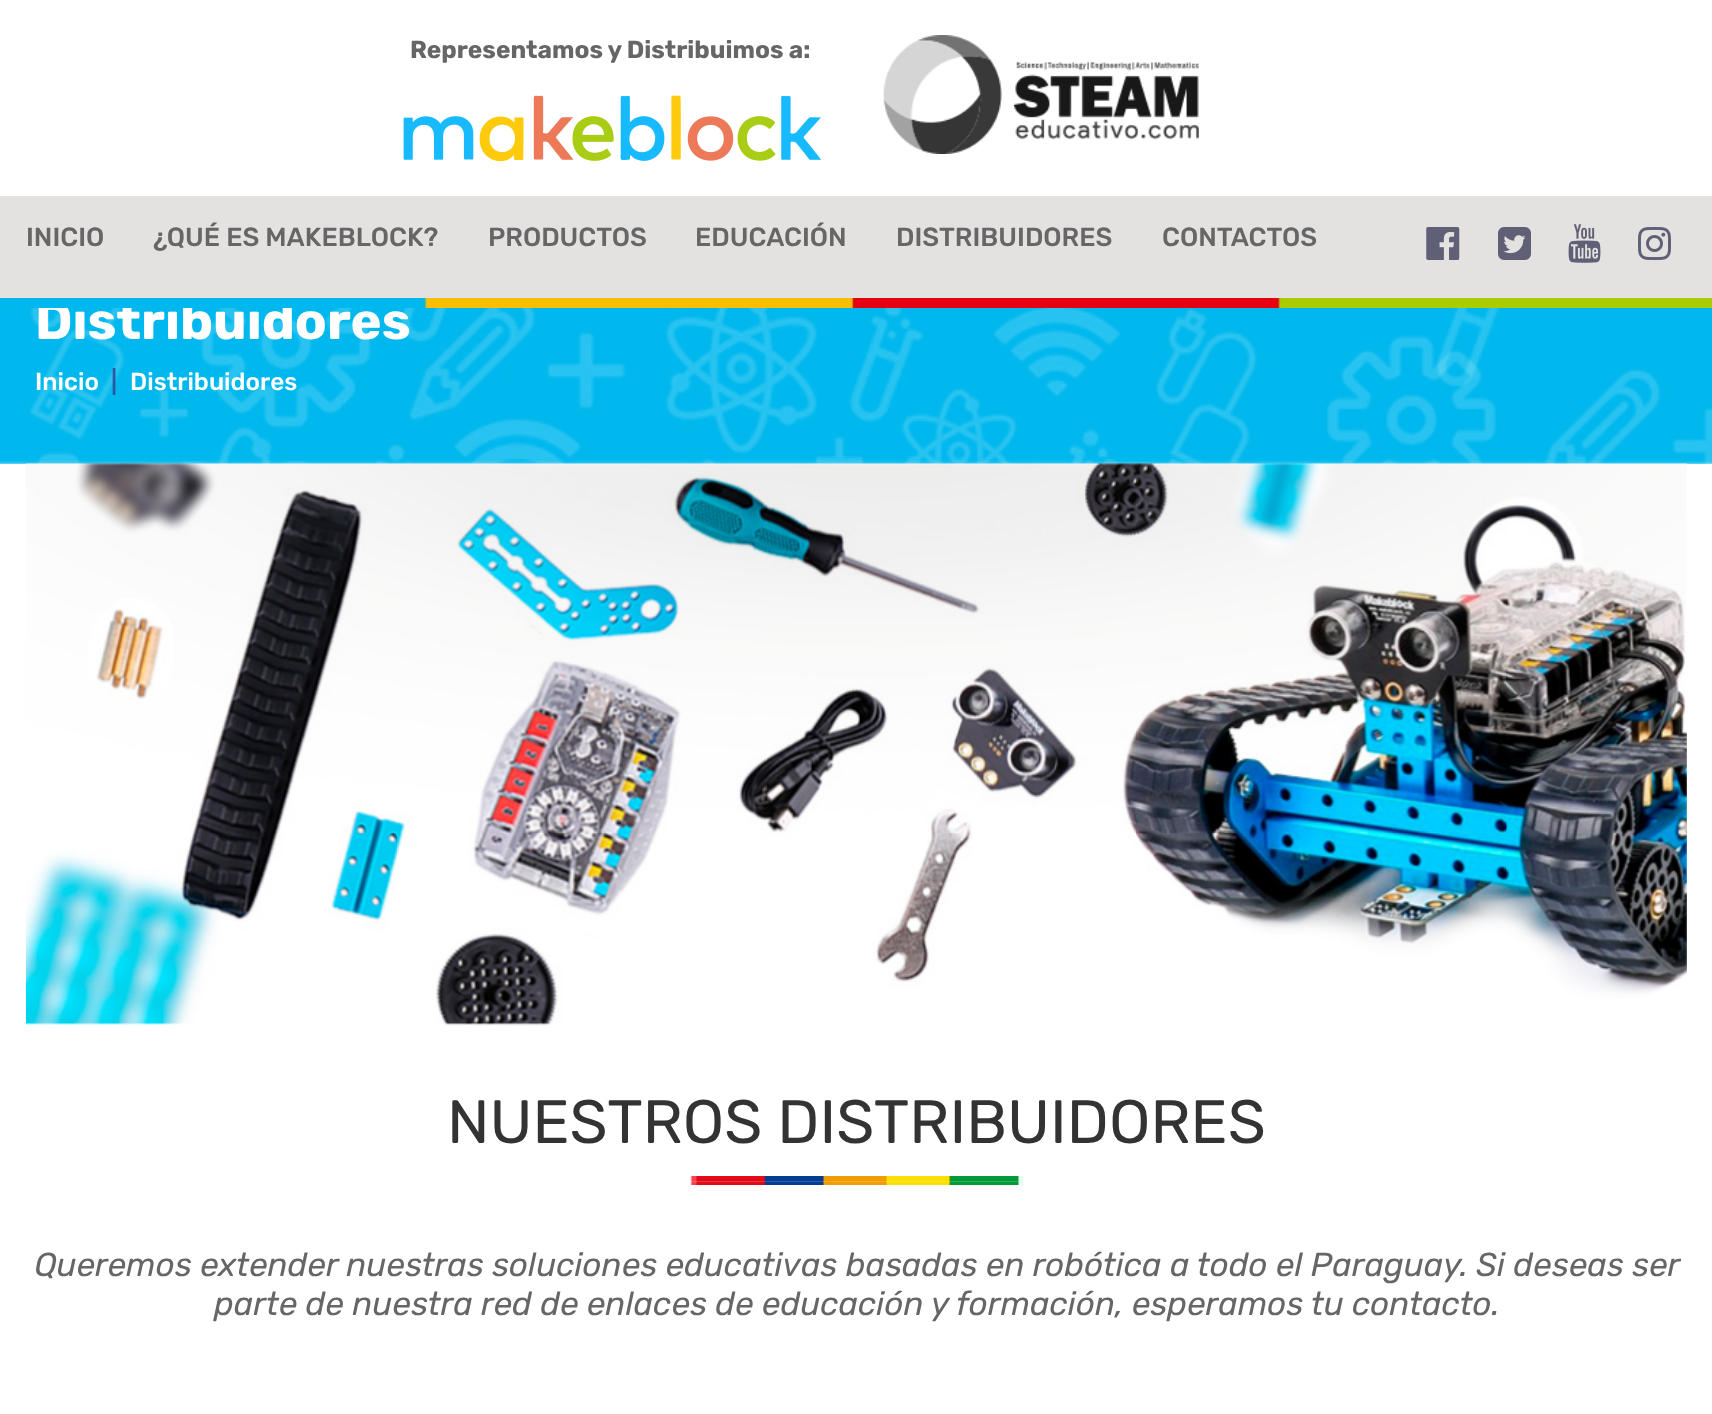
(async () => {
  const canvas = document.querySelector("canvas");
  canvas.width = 1712;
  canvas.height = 1414;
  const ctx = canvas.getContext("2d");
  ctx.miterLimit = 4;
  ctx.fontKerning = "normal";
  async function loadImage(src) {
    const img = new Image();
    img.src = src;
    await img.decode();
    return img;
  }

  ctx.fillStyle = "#ffffff";
  ctx.fillRect(0, 0, 1712, 1414);
  ctx.drawImage(await loadImage("img/2.png"), 403, 95, 418, 67);
  ctx.drawImage(await loadImage("img/3.png"), 883, 35, 316, 119);
  ctx.fillStyle = "#e4e1e1";
  ctx.fillRect(0, 196, 1712, 102);
  ctx.drawImage(await loadImage("img/4.png"), 1426, 227, 34, 33);
  ctx.drawImage(await loadImage("img/5.png"), 1498, 227, 33, 33);
  ctx.drawImage(await loadImage("img/6.png"), 1568, 224, 33, 39);
  ctx.drawImage(await loadImage("img/7.png"), 1638, 227, 33, 33);
  ctx.drawImage(await loadImage("img/8.png"), 0, 308, 1712, 156);
  ctx.drawImage(await loadImage("img/9.png"), 26, 463, 1661, 563);
  ctx.drawImage(await loadImage("img/10.png"), 690, 1176, 334, 9);
  ctx.font = "bold 24.5px Rubik";
  ctx.fillStyle = "#666666";
  ctx.fillText("Representamos y Distribuimos a:", 410, 58);
  ctx.font = "500 26.25px Rubik";
  for (const [text, x, y] of [
    ["INICIO", 26, 246],
    ["¿QUÉ ES MAKEBLOCK?", 153, 246],
    ["PRODUCTOS", 488, 246],
    ["EDUCACIÓN", 695, 246],
    ["DISTRIBUIDORES", 896, 246],
    ["CONTACTOS", 1162, 246],
  ]) {
    ctx.fillText(text, x, y);
  }
  ctx.font = "bold 52.5px Rubik";
  ctx.fillStyle = "#ffffff";
  ctx.fillText("Distribuidores", 35, 339);
  ctx.drawImage(await loadImage("img/1.png"), 0, 298, 1712, 10);
  ctx.font = "500 24.5px Rubik";
  ctx.fillText("Inicio", 35, 390);
  ctx.fillStyle = "#285aa4";
  ctx.fillText("|", 111, 390);
  ctx.fillStyle = "#ffffff";
  ctx.fillText("Distribuidores", 130, 390);
  ctx.font = "61.25px Rubik";
  ctx.fillStyle = "#333333";
  ctx.fillText("NUESTROS DISTRIBUIDORES", 447, 1143);
  ctx.font = "italic 33.25px Rubik";
  ctx.fillStyle = "#666666";
  ctx.fillText("Queremos extender nuestras soluciones educativas basadas en robótica a todo el Paraguay. Si deseas ser", 34, 1276);
  ctx.fillText("parte de nuestra red de enlaces de educación y formación, esperamos tu contacto.", 214, 1315);
})();
